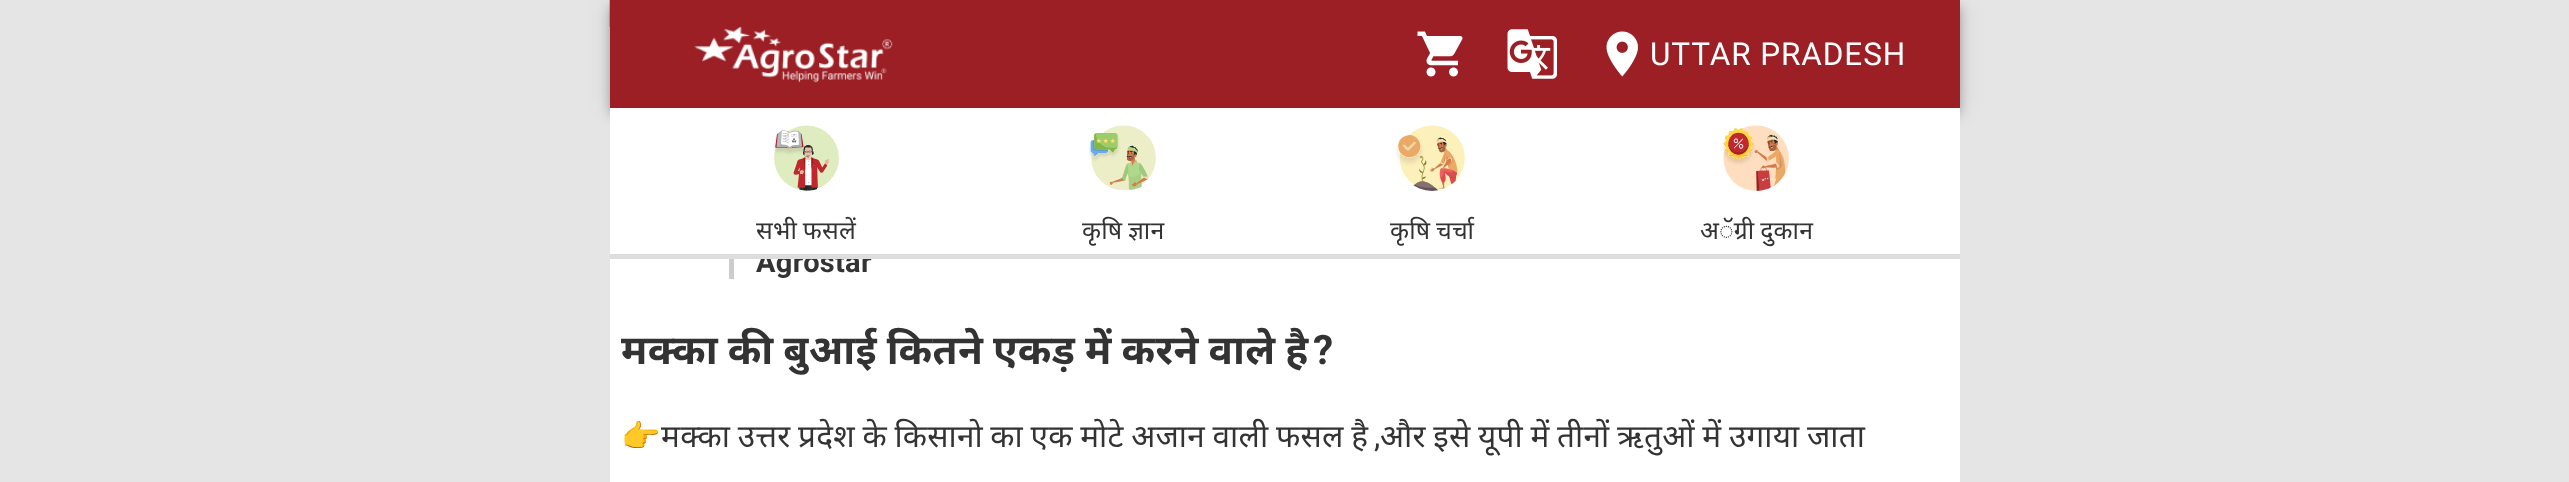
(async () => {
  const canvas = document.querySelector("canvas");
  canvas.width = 2569;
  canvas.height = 482;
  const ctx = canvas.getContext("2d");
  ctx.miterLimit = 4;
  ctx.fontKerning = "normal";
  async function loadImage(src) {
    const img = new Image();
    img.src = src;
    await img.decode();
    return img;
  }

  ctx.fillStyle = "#e5e5e5";
  ctx.fillRect(0, 0, 2569, 482);
  ctx.drawImage(await loadImage("img/9.png"), 609, 0, 1, 27);
  ctx.fillStyle = "rgba(0, 0, 0, 0.12)";
  ctx.filter = "blur(11px)";
  ctx.beginPath();
  ctx.rect(610, 2, 1350, 108);
  ctx.fill();
  ctx.filter = "none";
  ctx.fillStyle = "rgba(0, 0, 0, 0.14)";
  ctx.filter = "blur(5.5px)";
  ctx.beginPath();
  ctx.rect(610, 9, 1350, 108);
  ctx.fill();
  ctx.filter = "none";
  ctx.fillStyle = "rgba(0, 0, 0, 0.2)";
  ctx.filter = "blur(4.5px)";
  ctx.beginPath();
  ctx.rect(612, 7, 1346, 103);
  ctx.fill();
  ctx.filter = "none";
  ctx.fillStyle = "#9b1f24";
  ctx.fillRect(610, 0, 1350, 108);
  ctx.drawImage(await loadImage("img/1.png"), 694, 26, 199, 57);
  ctx.drawImage(await loadImage("img/2.png"), 1417, 31, 46, 46);
  ctx.drawImage(await loadImage("img/3.png"), 1507, 29, 50, 50);
  ctx.drawImage(await loadImage("img/4.png"), 1606, 31, 32, 46);
  ctx.fillStyle = "#ffffff";
  ctx.fillRect(610, 259, 1350, 223);
  ctx.fillStyle = "#cccccc";
  ctx.fillRect(729, 259, 5, 20);
  ctx.letterSpacing = "0.9px";
  ctx.font = "31.5px Roboto";
  ctx.fillStyle = "#ffffff";
  ctx.fillText("UTTAR PRADESH", 1650, 65);
  ctx.letterSpacing = "0.3px";
  ctx.font = "bold 29px Roboto";
  ctx.fillStyle = "#333333";
  ctx.fillText("Agrostar", 756, 272);
  ctx.fillStyle = "#ffffff";
  ctx.fillRect(610, 108, 1350, 146);
  ctx.letterSpacing = "0.25px";
  ctx.wordSpacing = "-1px";
  ctx.font = "24.75px 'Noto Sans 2'";
  ctx.fillStyle = "#333333";
  ctx.fillText("अॅग्री दुकान", 1700, 239);
  ctx.drawImage(await loadImage("img/8.png"), 1722, 125, 67, 66);
  ctx.fillText("कृषि चर्चा", 1390, 239);
  ctx.drawImage(await loadImage("img/7.png"), 1396, 125, 69, 66);
  ctx.fillText("कृषि ज्ञान", 1082, 239);
  ctx.drawImage(await loadImage("img/6.png"), 1089, 125, 67, 66);
  ctx.fillText("सभी फसलें", 756, 239);
  ctx.drawImage(await loadImage("img/5.png"), 774, 125, 65, 66);
  ctx.fillStyle = "#dddddd";
  ctx.fillRect(610, 254, 1350, 5);
  ctx.letterSpacing = "0.3px";
  ctx.font = "bold 40.5px Noto Sans";
  ctx.fillStyle = "#333333";
  ctx.fillText("मक्का की बुआई कितने एकड़ में करने वाले है", 621, 364);
  ctx.wordSpacing = "0px";
  ctx.font = "bold 40.5px Roboto";
  ctx.fillText("?", 1313, 364);
  ctx.font = "31.5px Noto Color Emoji";
  ctx.fillText("👉", 621, 447);
  ctx.wordSpacing = "-1px";
  ctx.font = "31.5px Noto Sans";
  ctx.fillText("मक्का उत्तर प्रदेश के किसानो का एक मोटे अजान वाली फसल है", 661, 447);
  ctx.wordSpacing = "0px";
  ctx.font = "31.5px Roboto";
  ctx.fillText(",", 1374, 447);
  ctx.wordSpacing = "-1px";
  ctx.font = "31.5px Noto Sans";
  ctx.fillText("और इसे यूपी में तीनों ऋतुओं में उगाया जाता", 1380, 447);
})();
